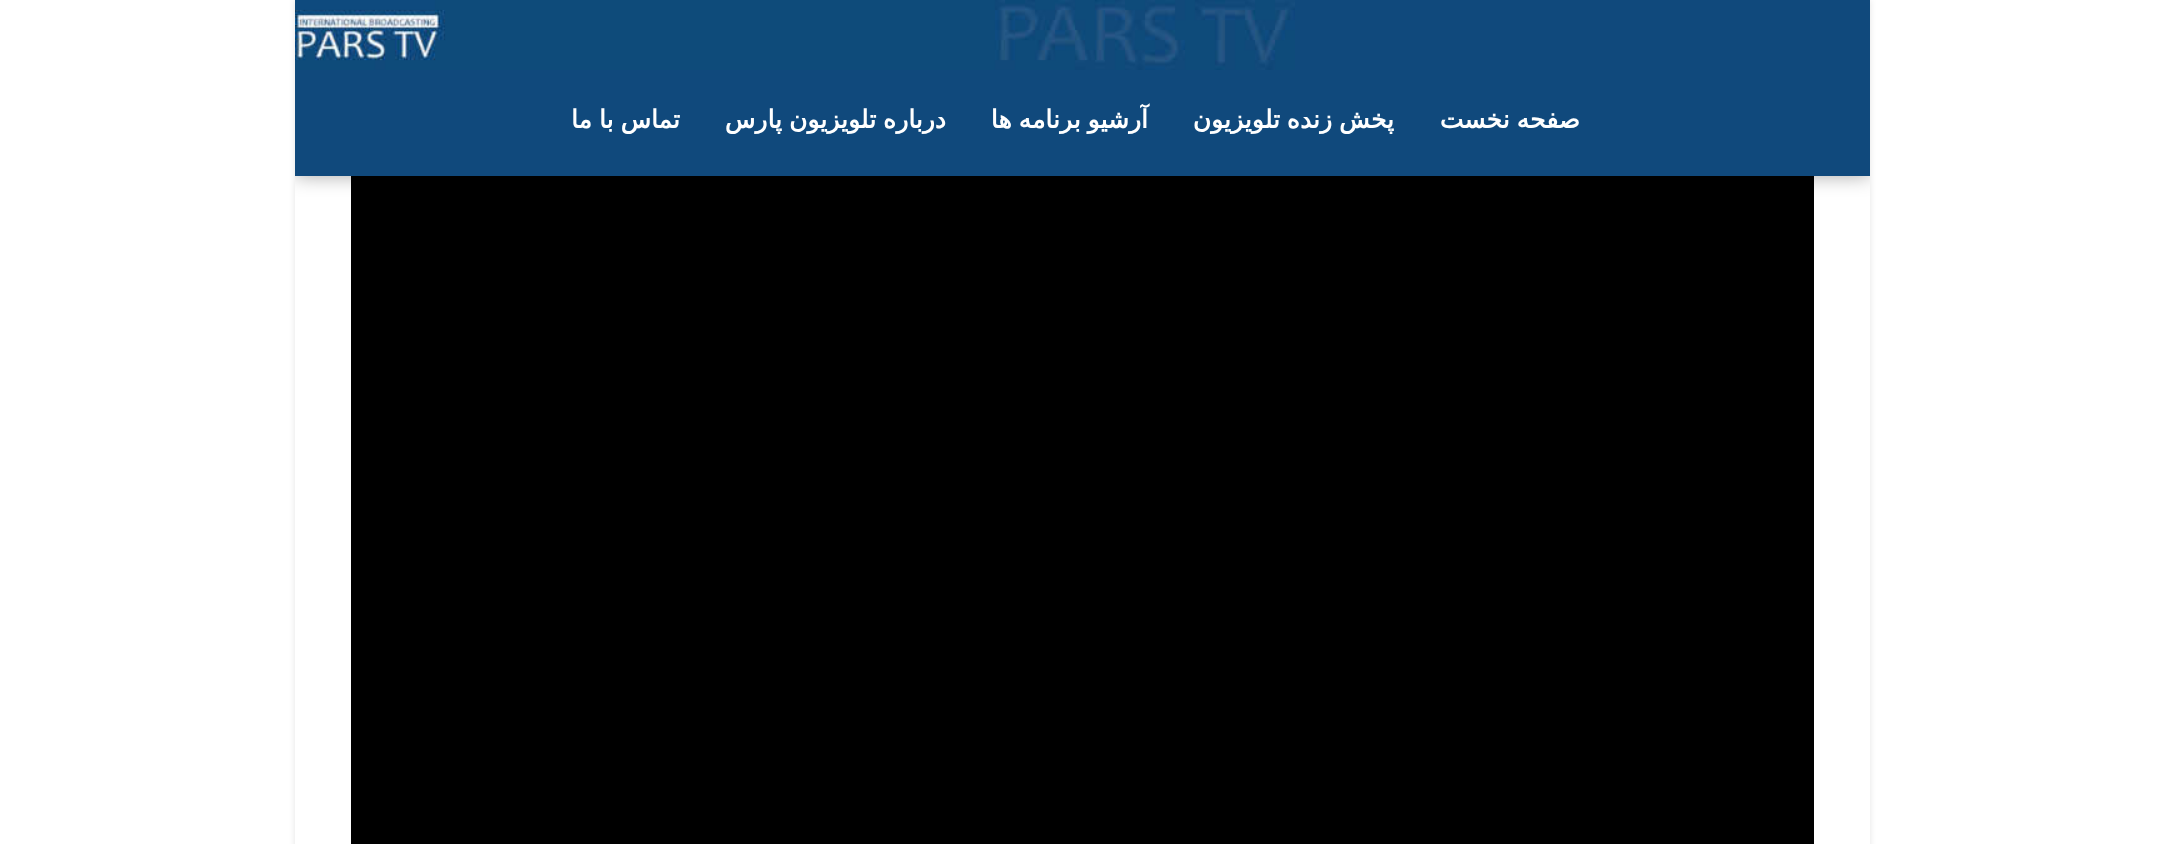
(async () => {
  const canvas = document.querySelector("canvas");
  canvas.width = 2165;
  canvas.height = 844;
  const ctx = canvas.getContext("2d");
  ctx.miterLimit = 4;
  ctx.fontKerning = "normal";
  async function loadImage(src) {
    const img = new Image();
    img.src = src;
    await img.decode();
    return img;
  }
  let path;

  ctx.fillStyle = "#ffffff";
  ctx.fillRect(0, 0, 2165, 844);
  ctx.save();
  path = new Path2D("M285 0H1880V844H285ZM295 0H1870V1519H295Z");
  ctx.clip(path, "evenodd");
  ctx.fillStyle = "rgba(0, 0, 0, 0.11)";
  ctx.filter = "blur(3px)";
  ctx.beginPath();
  ctx.rect(295, 0, 1575, 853);
  ctx.fill();
  ctx.filter = "none";
  ctx.restore();
  ctx.fillStyle = "#000000";
  ctx.fillRect(351, 176, 1463, 668);
  ctx.save();
  ctx.beginPath();
  ctx.rect(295, 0, 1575, 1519);
  ctx.clip();
  ctx.fillStyle = "rgba(0, 0, 0, 0.34)";
  ctx.filter = "blur(9.5px)";
  ctx.beginPath();
  ctx.rect(295, 0, 1575, 176);
  ctx.fill();
  ctx.filter = "none";
  ctx.restore();
  ctx.fillStyle = "#10497c";
  ctx.fillRect(295, 0, 1575, 176);
  ctx.drawImage(await loadImage("img/1.png"), 295, 0, 1000, 70);
  ctx.wordSpacing = "-1px";
  ctx.direction = "rtl";
  ctx.font = "bold 25px DejaVu Sans";
  ctx.fillStyle = "#ffffff";
  for (const [text, x, y] of [
    ["صفحه نخست", 1580, 128],
    ["پخش زنده تلویزیون", 1394, 128],
    ["آرشیو برنامه ها", 1148, 128],
    ["درباره تلویزیون پارس", 946, 128],
    ["تماس با ما", 680, 128],
  ]) {
    ctx.fillText(text, x, y);
  }
})();
